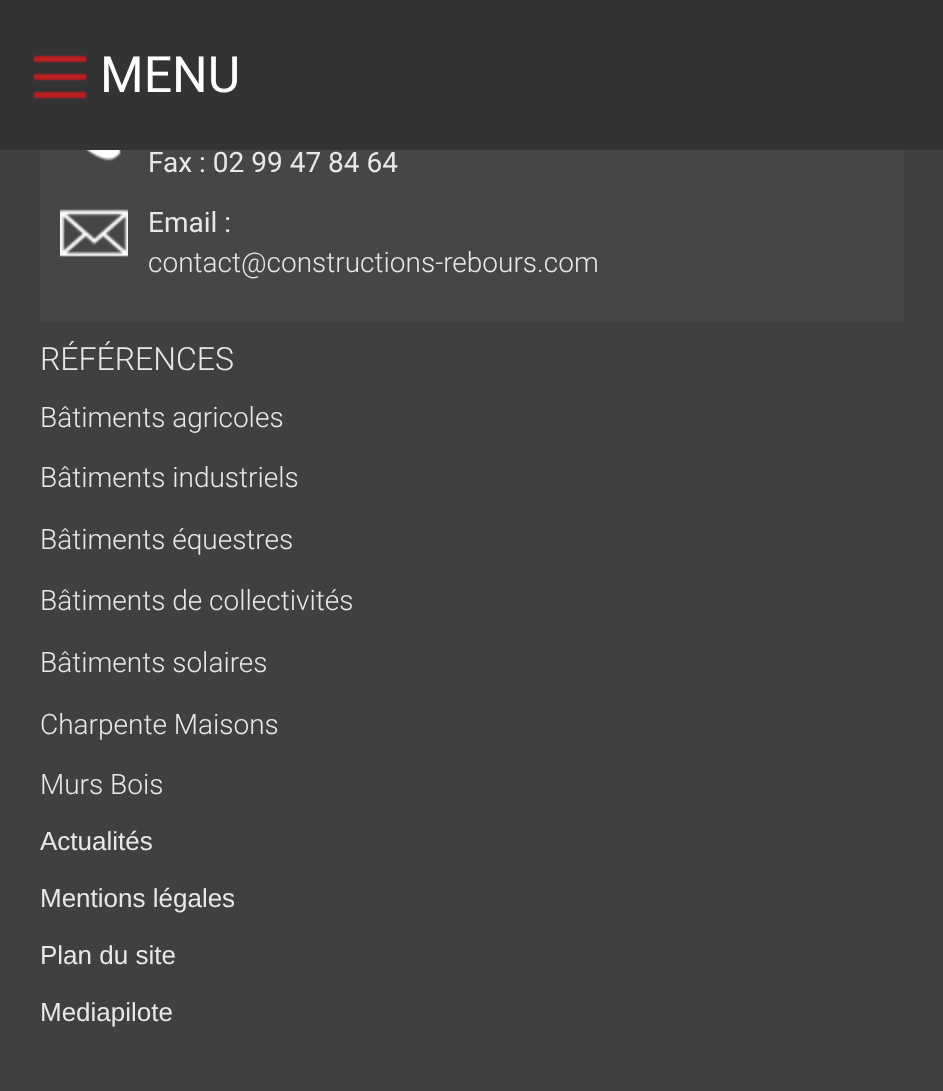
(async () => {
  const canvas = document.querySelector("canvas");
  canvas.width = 943;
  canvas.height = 1091;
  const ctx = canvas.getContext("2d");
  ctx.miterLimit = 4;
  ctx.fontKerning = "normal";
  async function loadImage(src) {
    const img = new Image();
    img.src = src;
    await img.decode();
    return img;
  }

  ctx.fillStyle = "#404040";
  ctx.fillRect(0, 0, 943, 1091);
  ctx.fillStyle = "#333333";
  ctx.fillRect(0, 0, 943, 150);
  ctx.drawImage(await loadImage("img/1.png"), 33, 55, 54, 44);
  ctx.fillStyle = "#464646";
  ctx.fillRect(40, 150, 864, 172);
  ctx.drawImage(await loadImage("img/2.png"), 85, 150, 36, 11);
  ctx.drawImage(await loadImage("img/3.png"), 60, 209, 68, 48);
  ctx.font = "50px Roboto";
  ctx.fillStyle = "#ffffff";
  ctx.fillText("MENU", 100, 92);
  ctx.font = "28px Roboto";
  ctx.fillStyle = "#e8e8e8";
  ctx.fillText("Fax : 02 99 47 84 64", 148, 172);
  ctx.fillText("Email :", 148, 232);
  ctx.font = "300 28px Roboto";
  ctx.fillText("contact@constructions-rebours.com", 148, 272);
  ctx.font = "300 32px Roboto";
  ctx.fillText("RÉFÉRENCES", 40, 370);
  ctx.font = "300 28px Roboto";
  for (const [text, x, y] of [
    ["Bâtiments agricoles", 40, 427],
    ["Bâtiments industriels", 40, 487],
    ["Bâtiments équestres", 40, 549],
    ["Bâtiments de collectivités", 40, 610],
    ["Bâtiments solaires", 40, 672],
    ["Charpente Maisons", 40, 734],
    ["Murs Bois", 40, 794],
  ]) {
    ctx.fillText(text, x, y);
  }
  ctx.font = "26px Liberation Sans";
  for (const [text, x, y] of [
    ["Actualités", 40, 850],
    ["Mentions légales", 40, 907],
    ["Plan du site", 40, 964],
    ["Mediapilote", 40, 1021],
  ]) {
    ctx.fillText(text, x, y);
  }
})();
